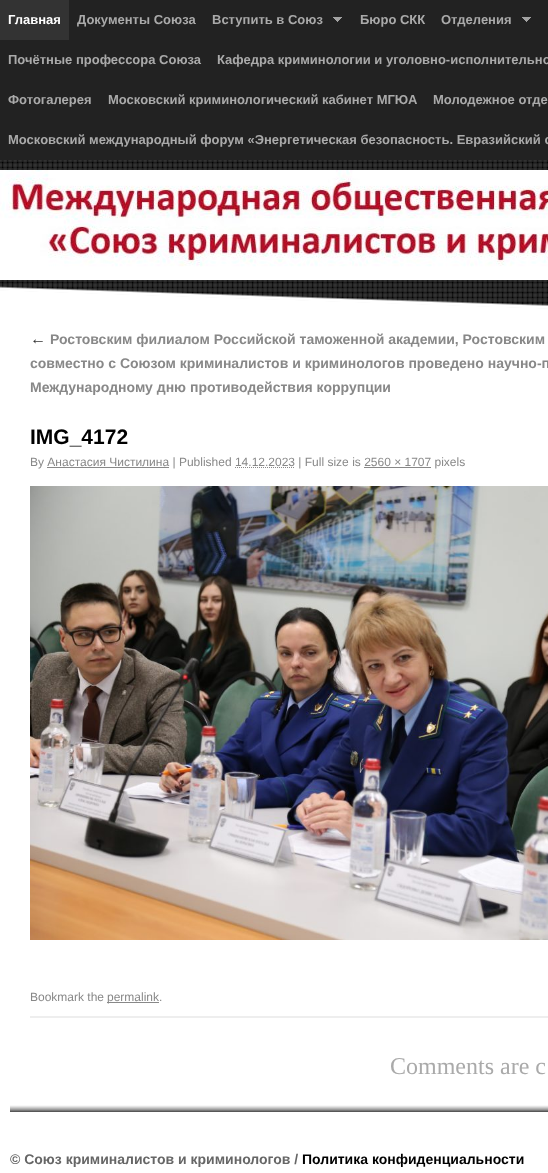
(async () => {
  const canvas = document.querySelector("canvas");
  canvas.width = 548;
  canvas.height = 1173;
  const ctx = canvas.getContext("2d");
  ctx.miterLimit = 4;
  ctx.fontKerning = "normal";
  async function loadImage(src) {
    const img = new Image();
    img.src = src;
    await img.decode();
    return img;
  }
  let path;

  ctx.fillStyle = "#ffffff";
  ctx.fillRect(0, 0, 548, 1173);
  ctx.drawImage(await loadImage("img/1.png"), 0, 160, 548, 146);
  ctx.fillStyle = "#222222";
  ctx.fillRect(0, 0, 548, 160);
  ctx.fillStyle = "#333333";
  ctx.fillRect(0, 0, 69, 40);
  ctx.drawImage(await loadImage("img/2.png"), 333, 17, 9, 5);
  ctx.drawImage(await loadImage("img/2.png"), 522, 17, 9, 5);
  ctx.drawImage(await loadImage("img/3.png"), 0, 170, 548, 110);
  ctx.drawImage(await loadImage("img/4.png"), 0, 286, 548, 31);
  ctx.fillStyle = "#888888";
  ctx.fillRect(47, 467, 122, 1);
  path = new Path2D("M235 467.5H295");
  ctx.strokeStyle = "#888888";
  ctx.setLineDash([1, 1]);
  ctx.stroke(path);
  ctx.fillRect(364, 467, 67, 1);
  ctx.drawImage(await loadImage("img/5.png"), 30, 486, 518, 454);
  ctx.fillStyle = "#eeeeee";
  ctx.fillRect(30, 1016, 518, 2);
  ctx.fillStyle = "#888888";
  ctx.fillRect(107, 1002, 52, 1);
  ctx.drawImage(await loadImage("img/6.png"), 10, 1105, 538, 7);
  ctx.font = "bold 13px Liberation Sans";
  ctx.fillStyle = "#ffffff";
  ctx.fillText("Главная", 8, 24);
  ctx.fillStyle = "#aaaaaa";
  for (const [text, x, y] of [
    ["Документы Союза", 77, 24],
    ["Вступить в Союз", 212, 24],
    ["Бюро СКК", 360, 24],
    ["Отделения", 441, 24],
    ["Почётные профессора Союза", 8, 64],
    ["Кафедра криминологии и уголовно-исполнительно", 217, 64],
    ["Фотогалерея", 8, 104],
    ["Московский криминологический кабинет МГЮА", 108, 104],
    ["Молодежное отде", 433, 104],
    ["Московский международный форум «Энергетическая безопасность. Евразийский с", 8, 144],
  ]) {
    ctx.fillText(text, x, y);
  }
  ctx.font = "italic 16px Liberation Serif";
  ctx.fillStyle = "#333333";
  ctx.fillText("←", 30, 344);
  ctx.font = "bold 14px Liberation Sans";
  ctx.fillStyle = "#888888";
  for (const [text, x, y] of [
    ["Ростовским филиалом Российской таможенной академии, Ростовским", 50, 344],
    ["совместно с Союзом криминалистов и криминологов проведено научно-п", 30, 368],
    ["Международному дню противодействия коррупции", 30, 392],
  ]) {
    ctx.fillText(text, x, y);
  }
  ctx.font = "bold 21px Liberation Sans";
  ctx.fillStyle = "#000000";
  ctx.fillText("IMG_4172", 30, 444);
  ctx.font = "12px Liberation Sans";
  ctx.fillStyle = "#888888";
  for (const [text, x, y] of [
    ["By Анастасия Чистилина | Published 14.12.2023 | Full size is 2560 × 1707 pixels", 30, 466],
    ["Bookmark the", 30, 1001],
    ["permalink.", 107, 1001],
  ]) {
    ctx.fillText(text, x, y);
  }
  ctx.font = "24px Liberation Serif";
  ctx.fillStyle = "#aaaaaa";
  ctx.fillText("Comments are c", 390, 1074);
  ctx.font = "bold 14px Liberation Sans";
  ctx.fillStyle = "#666666";
  ctx.fillText("© Союз криминалистов и криминологов /", 10, 1164);
  ctx.fillStyle = "#000000";
  ctx.fillText("Политика конфиденциальности", 302, 1164);
})();
